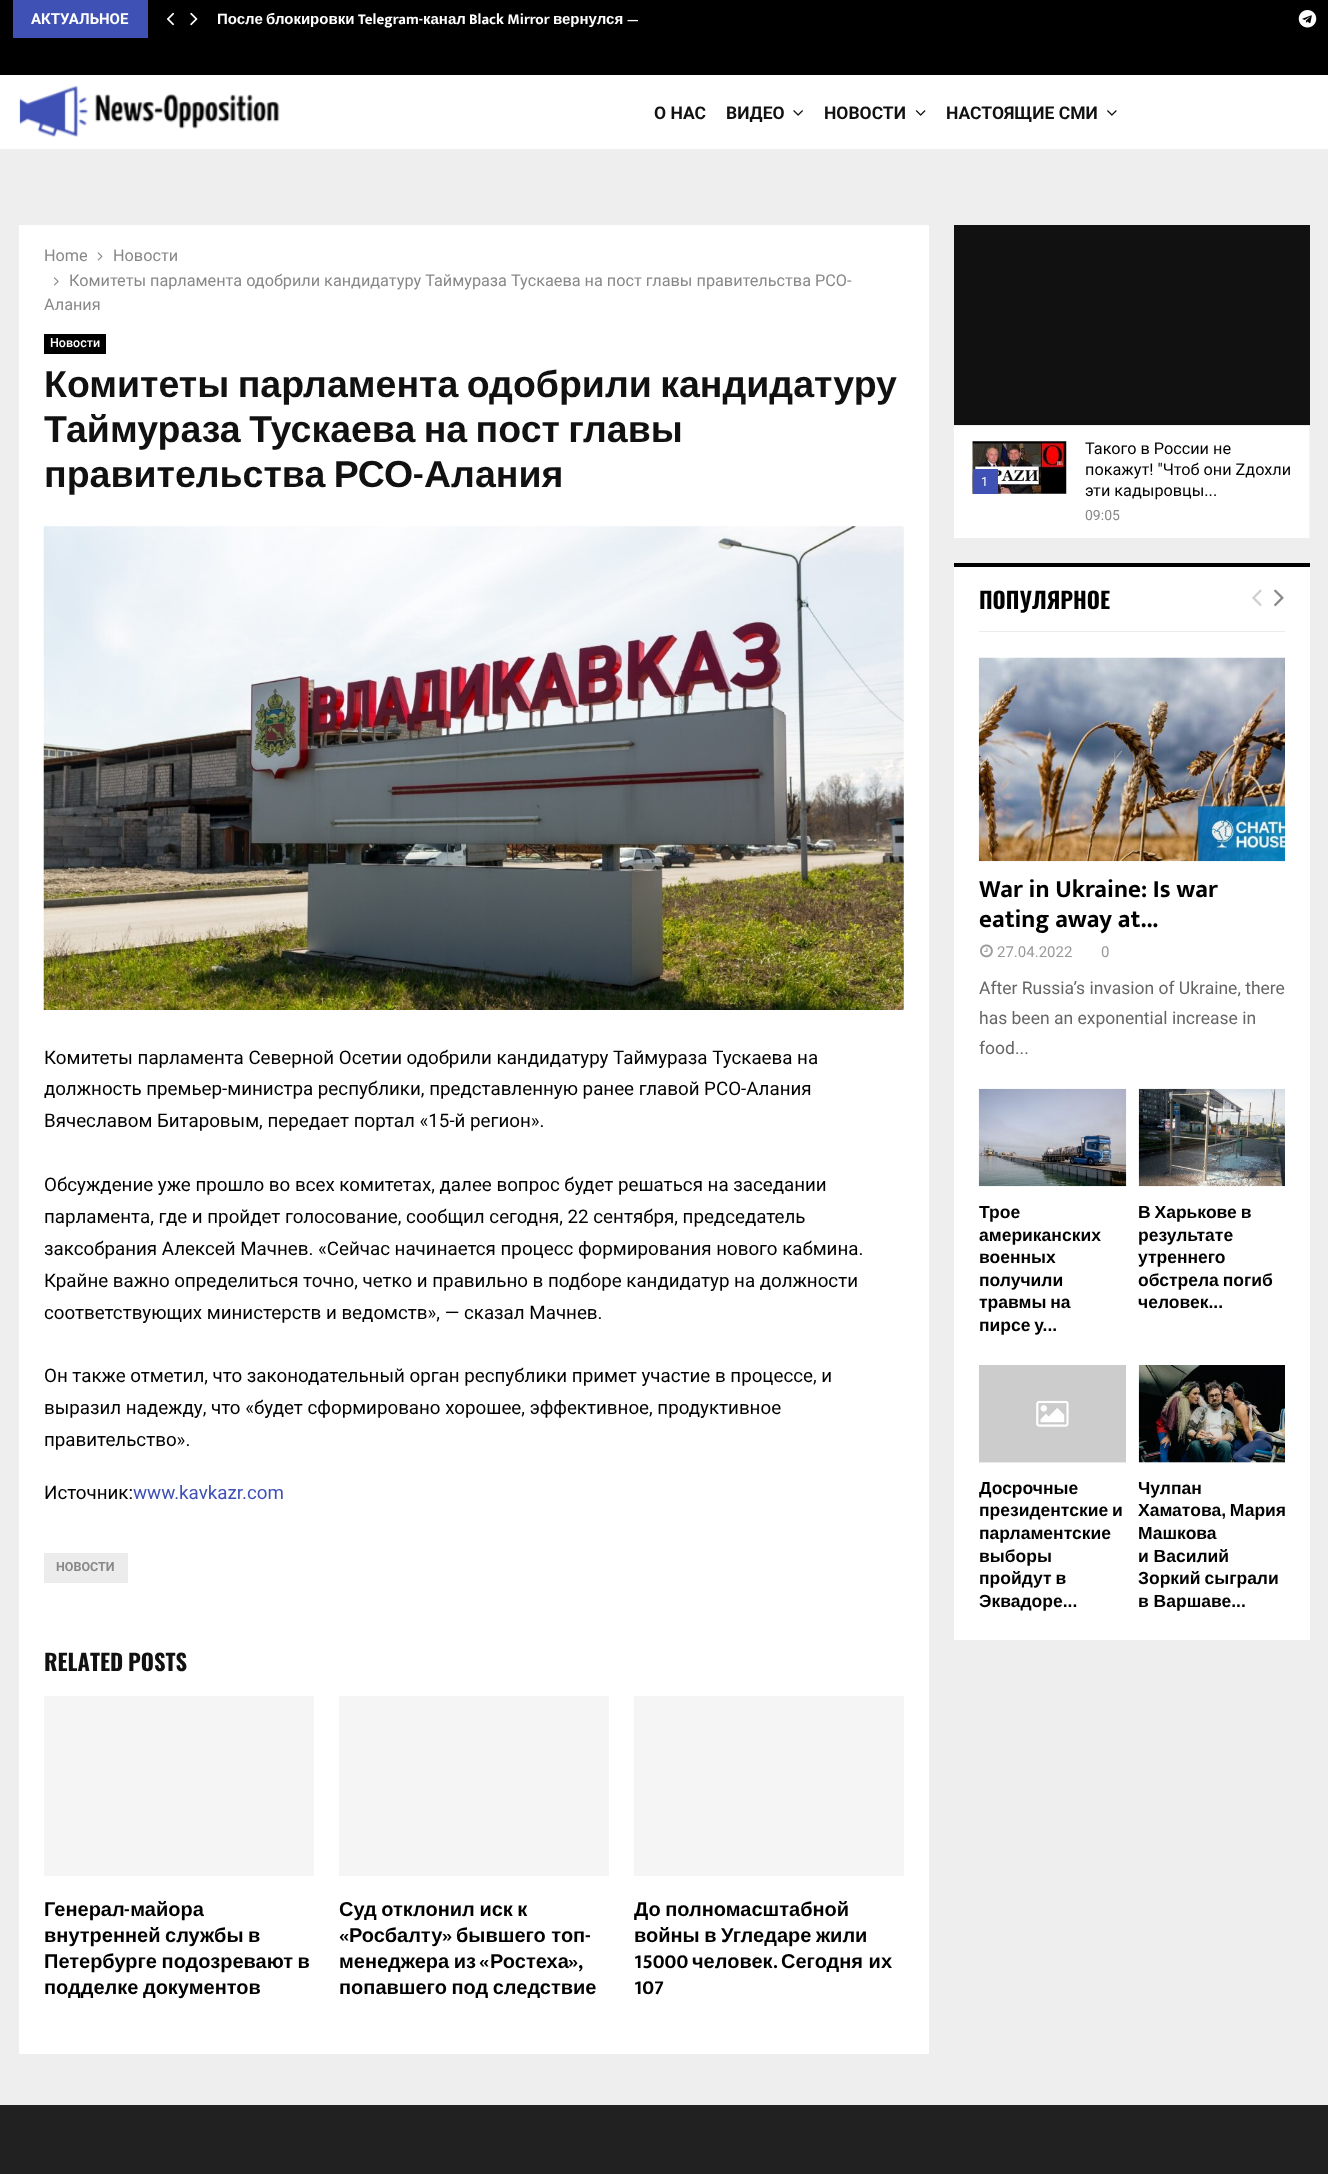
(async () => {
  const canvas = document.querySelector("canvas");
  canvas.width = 1328;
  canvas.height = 2174;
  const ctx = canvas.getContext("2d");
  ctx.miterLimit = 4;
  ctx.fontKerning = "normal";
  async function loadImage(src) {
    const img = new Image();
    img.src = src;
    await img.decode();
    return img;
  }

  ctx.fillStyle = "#eeeeee";
  ctx.fillRect(0, 0, 1328, 2174);
  ctx.fillStyle = "#000000";
  ctx.fillRect(0, 0, 1328, 75);
  ctx.fillStyle = "#3f51b5";
  ctx.fillRect(13, 0, 135, 38);
  ctx.drawImage(await loadImage("img/1.png"), 166, 12, 9, 14);
  ctx.drawImage(await loadImage("img/2.png"), 190, 12, 8, 14);
  ctx.drawImage(await loadImage("img/3.png"), 1298, 10, 19, 18);
  ctx.fillStyle = "#ffffff";
  ctx.fillRect(0, 75, 1328, 74);
  ctx.drawImage(await loadImage("img/4.png"), 19, 86, 261, 51);
  ctx.drawImage(await loadImage("img/5.png"), 793, 110, 10, 6);
  ctx.drawImage(await loadImage("img/6.png"), 915, 110, 11, 6);
  ctx.drawImage(await loadImage("img/7.png"), 1107, 110, 10, 6);
  ctx.fillRect(19, 225, 910, 1829);
  ctx.drawImage(await loadImage("img/8.png"), 97, 252, 6, 9);
  ctx.drawImage(await loadImage("img/9.png"), 54, 277, 5, 9);
  ctx.fillStyle = "#000000";
  ctx.fillRect(44, 334, 62, 20);
  ctx.drawImage(await loadImage("img/10.png"), 43, 526, 861, 484);
  for (const [x, y, w, h, color] of [
    [44, 1553, 84, 30, "#ececec"],
    [44, 1696, 270, 180, "#f5f5f5"],
    [339, 1696, 270, 180, "#f5f5f5"],
    [634, 1696, 270, 180, "#f5f5f5"],
    [954, 426, 355, 112, "#ffffff"],
    [1309, 425, 1, 113, "#f2f2f2"],
    [954, 225, 356, 200, "#111111"],
    [1309, 425, 1, 1, "#ececec"],
    [1309, 425, 1, 1, "#e0e0e0"],
  ]) {
    ctx.fillStyle = color;
    ctx.fillRect(x, y, w, h);
  }
  ctx.drawImage(await loadImage("img/11.png"), 972, 441, 95, 53);
  for (const [x, y, w, h, color] of [
    [973, 469, 25, 25, "#3f51b5"],
    [954, 567, 356, 1073, "#ffffff"],
    [979, 631, 306, 1, "#ececec"],
    [954, 563, 356, 4, "#000000"],
  ]) {
    ctx.fillStyle = color;
    ctx.fillRect(x, y, w, h);
  }
  ctx.drawImage(await loadImage("img/12.png"), 1252, 589, 10, 18);
  ctx.drawImage(await loadImage("img/13.png"), 1274, 589, 10, 18);
  ctx.drawImage(await loadImage("img/14.png"), 978, 657, 307, 205);
  ctx.drawImage(await loadImage("img/15.png"), 980, 944, 13, 14);
  ctx.drawImage(await loadImage("img/16.png"), 978, 1088, 149, 99);
  ctx.drawImage(await loadImage("img/17.png"), 1138, 1088, 147, 99);
  ctx.fillStyle = "#f5f5f5";
  ctx.fillRect(979, 1462, 147, 1);
  ctx.drawImage(await loadImage("img/18.png"), 979, 1365, 147, 98);
  ctx.fillRect(1139, 1462, 146, 1);
  ctx.drawImage(await loadImage("img/19.png"), 1138, 1365, 147, 98);
  ctx.fillStyle = "#212121";
  ctx.fillRect(0, 2105, 1328, 69);
  ctx.font = "bold 15px Roboto";
  ctx.fillStyle = "#ffffff";
  ctx.fillText("АКТУАЛЬНОЕ", 31, 24);
  ctx.font = "bold 15px Liberation Sans";
  ctx.fillText("После", 217, 24);
  ctx.fillText("блокировки", 266, 24);
  ctx.font = "bold 15px Mukta Vaani";
  ctx.fillText("Telegram-", 358, 24);
  ctx.font = "bold 15px Liberation Sans";
  ctx.fillText("канал", 423, 24);
  ctx.font = "bold 15px Mukta Vaani";
  ctx.fillText("Black Mirror", 469, 24);
  ctx.font = "bold 15px Liberation Sans";
  ctx.fillText("вернулся", 553, 24);
  ctx.save();
  ctx.beginPath();
  ctx.rect(218, 0, 420, 75);
  ctx.clip();
  ctx.font = "bold 15px Mukta Vaani";
  ctx.fillText("—", 627, 24);
  ctx.restore();
  ctx.font = "bold 17.5px Roboto";
  ctx.fillStyle = "#111111";
  for (const [text, x, y] of [
    ["О НАС", 654, 119],
    ["ВИДЕО", 726, 119],
    ["НОВОСТИ", 824, 119],
    ["НАСТОЯЩИЕ СМИ", 946, 119],
  ]) {
    ctx.fillText(text, x, y);
  }
  ctx.font = "16.25px Roboto";
  ctx.fillStyle = "#888888";
  for (const [text, x, y] of [
    ["Home", 44, 261],
    ["Новости", 113, 261],
    ["Комитеты парламента одобрили кандидатуру Таймураза Тускаева на пост главы правительства РСО-", 69, 286],
    ["Алания", 44, 310],
  ]) {
    ctx.fillText(text, x, y);
  }
  ctx.font = "500 12.5px Roboto";
  ctx.fillStyle = "#ffffff";
  ctx.fillText("Новости", 50, 347);
  ctx.wordSpacing = "-2px";
  ctx.font = "bold 37.5px Liberation Sans";
  ctx.fillStyle = "#111111";
  for (const [text, x, y] of [
    ["Комитеты парламента одобрили кандидатуру", 44, 397],
    ["Таймураза Тускаева на пост главы", 44, 442],
    ["правительства РСО", 44, 487],
  ]) {
    ctx.fillText(text, x, y);
  }
  ctx.wordSpacing = "0px";
  ctx.font = "bold 37.5px Mukta Vaani";
  ctx.fillText("-", 413, 487);
  ctx.font = "bold 37.5px Liberation Sans";
  ctx.fillText("Алания", 424, 487);
  ctx.font = "18.75px Roboto";
  ctx.fillStyle = "#000000";
  for (const [text, x, y] of [
    ["Комитеты парламента Северной Осетии одобрили кандидатуру Таймураза Тускаева на", 44, 1064],
    ["должность премьер-министра республики, представленную ранее главой РСО-Алания", 44, 1095],
    ["Вячеславом Битаровым, передает портал «15-й регион».", 44, 1127],
    ["Обсуждение уже прошло во всех комитетах, далее вопрос будет решаться на заседании", 44, 1191],
    ["парламента, где и пройдет голосование, сообщил сегодня, 22 сентября, председатель", 44, 1223],
    ["заксобрания Алексей Мачнев. «Сейчас начинается процесс формирования нового кабмина.", 44, 1255],
    ["Крайне важно определиться точно, четко и правильно в подборе кандидатур на должности", 44, 1287],
    ["соответствующих министерств и ведомств», — сказал Мачнев.", 44, 1319],
    ["Он также отметил, что законодательный орган республики примет участие в процессе, и", 44, 1382],
    ["выразил надежду, что «будет сформировано хорошее, эффективное, продуктивное", 44, 1414],
    ["правительство».", 44, 1446],
    ["Источник:", 44, 1499],
  ]) {
    ctx.fillText(text, x, y);
  }
  ctx.fillStyle = "#3f51b5";
  ctx.fillText("www.kavkazr.com", 133, 1499);
  ctx.font = "bold 12.5px Roboto";
  ctx.fillStyle = "#888888";
  ctx.fillText("НОВОСТИ", 56, 1571);
  ctx.wordSpacing = "-1px";
  ctx.font = "bold 22.5px Oswald";
  ctx.fillStyle = "#111111";
  ctx.fillText("RELATED POSTS", 44, 1671);
  ctx.wordSpacing = "0px";
  ctx.font = "bold 20px Liberation Sans";
  ctx.fillStyle = "#000000";
  ctx.fillText("Генерал майора", 44, 1916);
  ctx.font = "bold 20px Mukta Vaani";
  ctx.fillText("-", 124, 1916);
  ctx.wordSpacing = "-1px";
  ctx.font = "bold 20px Liberation Sans";
  for (const [text, x, y] of [
    ["внутренней службы в", 44, 1942],
    ["Петербурге подозревают в", 44, 1968],
    ["подделке документов", 44, 1994],
    ["Суд отклонил иск к", 339, 1916],
  ]) {
    ctx.fillText(text, x, y);
  }
  ctx.wordSpacing = "0px";
  ctx.font = "bold 20px Mukta Vaani";
  ctx.fillText("«", 339, 1942);
  ctx.font = "bold 20px Liberation Sans";
  ctx.fillText("Росбалту", 349, 1942);
  ctx.font = "bold 20px Mukta Vaani";
  ctx.fillText("»", 442, 1942);
  ctx.font = "bold 20px Liberation Sans";
  ctx.fillText("бывшего топ", 456, 1942);
  ctx.font = "bold 20px Mukta Vaani";
  ctx.fillText("-", 585, 1942);
  ctx.wordSpacing = "-1px";
  ctx.font = "bold 20px Liberation Sans";
  ctx.fillText("менеджера из", 339, 1968);
  ctx.wordSpacing = "0px";
  ctx.font = "bold 20px Mukta Vaani";
  ctx.fillText("«", 479, 1968);
  ctx.font = "bold 20px Liberation Sans";
  ctx.fillText("Ростеха", 490, 1968);
  ctx.font = "bold 20px Mukta Vaani";
  ctx.fillText("»,", 568, 1968);
  ctx.wordSpacing = "-1px";
  ctx.font = "bold 20px Liberation Sans";
  for (const [text, x, y] of [
    ["попавшего под следствие", 339, 1994],
    ["До полномасштабной", 634, 1916],
    ["войны в Угледаре жили", 634, 1942],
  ]) {
    ctx.fillText(text, x, y);
  }
  ctx.wordSpacing = "0px";
  ctx.font = "bold 20px Mukta Vaani";
  ctx.fillText("15000", 634, 1968);
  ctx.font = "bold 20px Liberation Sans";
  ctx.fillText("человек", 692, 1968);
  ctx.font = "bold 20px Mukta Vaani";
  ctx.fillText(".", 773, 1968);
  ctx.font = "bold 20px Liberation Sans";
  ctx.fillText("Сегодня их", 781, 1968);
  ctx.font = "bold 20px Mukta Vaani";
  ctx.fillText("107", 634, 1994);
  ctx.font = "12.5px Roboto";
  ctx.fillStyle = "#ffffff";
  ctx.fillText("1", 981, 486);
  ctx.font = "16.25px Roboto";
  ctx.fillStyle = "#000000";
  for (const [text, x, y] of [
    ["Такого в России не", 1085, 454],
    ["покажут! \"Чтоб они Zдохли", 1085, 475],
    ["эти кадыровцы...", 1085, 496],
  ]) {
    ctx.fillText(text, x, y);
  }
  ctx.font = "14px Roboto";
  ctx.fillStyle = "#888888";
  ctx.fillText("09:05", 1085, 520);
  ctx.font = "bold 22.5px Oswald";
  ctx.fillStyle = "#000000";
  ctx.fillText("ПОПУЛЯРНОЕ", 979, 609);
  ctx.font = "bold 25px Mukta Vaani";
  ctx.fillText("War in Ukraine: Is war", 979, 897);
  ctx.fillText("eating away at...", 979, 927);
  ctx.font = "15px Roboto";
  ctx.fillStyle = "#999999";
  ctx.fillText("27.04.2022", 997, 957);
  ctx.fillText("0", 1101, 957);
  ctx.font = "17.5px Roboto";
  ctx.fillStyle = "#666666";
  for (const [text, x, y] of [
    ["After Russia’s invasion of Ukraine, there", 979, 994],
    ["has been an exponential increase in", 979, 1024],
    ["food...", 979, 1054],
  ]) {
    ctx.fillText(text, x, y);
  }
  ctx.font = "bold 17.5px Liberation Sans";
  ctx.fillStyle = "#000000";
  for (const [text, x, y] of [
    ["Трое", 979, 1218],
    ["американских", 979, 1241],
    ["военных", 979, 1263],
    ["получили", 979, 1286],
  ]) {
    ctx.fillText(text, x, y);
  }
  ctx.wordSpacing = "-1px";
  for (const [text, x, y] of [
    ["травмы на", 979, 1308],
    ["пирсе у...", 979, 1331],
    ["В Харькове в", 1138, 1218],
  ]) {
    ctx.fillText(text, x, y);
  }
  ctx.wordSpacing = "0px";
  ctx.fillText("результате", 1138, 1241);
  ctx.fillText("утреннего", 1138, 1263);
  ctx.wordSpacing = "-1px";
  ctx.fillText("обстрела погиб", 1138, 1286);
  ctx.wordSpacing = "0px";
  ctx.fillText("человек...", 1138, 1308);
  ctx.save();
  ctx.beginPath();
  ctx.rect(979, 658, 306, 957);
  ctx.clip();
  ctx.fillText("Досрочные", 979, 1494);
  ctx.restore();
  ctx.wordSpacing = "-1px";
  ctx.fillText("президентские и", 979, 1516);
  ctx.wordSpacing = "0px";
  ctx.fillText("парламентские", 979, 1539);
  ctx.fillText("выборы", 979, 1562);
  ctx.wordSpacing = "-1px";
  ctx.fillText("пройдут в", 979, 1584);
  ctx.wordSpacing = "0px";
  ctx.fillText("Эквадоре...", 979, 1607);
  ctx.fillText("Чулпан", 1138, 1494);
  ctx.wordSpacing = "-1px";
  ctx.fillText("Хаматова, Мария", 1138, 1516);
  ctx.wordSpacing = "0px";
  ctx.fillText("Машкова", 1138, 1539);
  ctx.fillText("и Василий", 1138, 1562);
  ctx.wordSpacing = "-1px";
  ctx.fillText("Зоркий сыграли", 1138, 1584);
  ctx.wordSpacing = "0px";
  ctx.fillText("в Варшаве...", 1138, 1607);
})();
